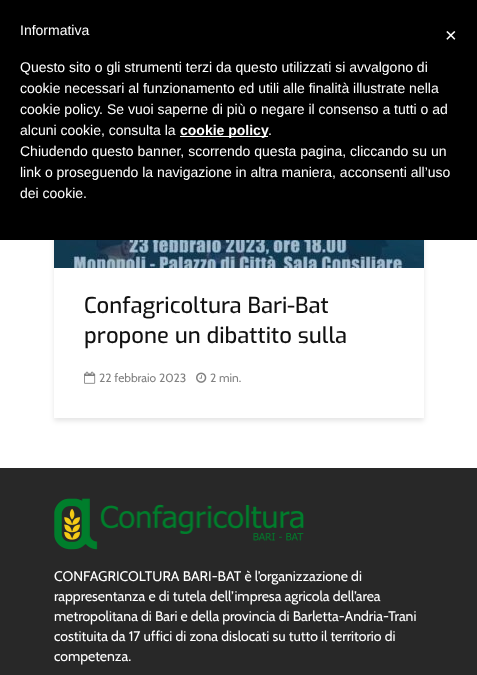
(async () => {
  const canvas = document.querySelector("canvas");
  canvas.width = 477;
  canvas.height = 675;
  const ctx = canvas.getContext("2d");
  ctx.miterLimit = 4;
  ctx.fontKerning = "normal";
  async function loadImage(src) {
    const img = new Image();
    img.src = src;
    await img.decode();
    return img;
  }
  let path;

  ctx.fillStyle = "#ffffff";
  ctx.fillRect(0, 0, 477, 675);
  ctx.save();
  path = new Path2D("M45 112H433V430H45ZM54 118H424V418H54Z");
  ctx.clip(path, "evenodd");
  ctx.fillStyle = "rgba(0, 1, 1, 0.1)";
  ctx.filter = "blur(2.5px)";
  ctx.beginPath();
  ctx.rect(54, 121, 370, 300);
  ctx.fill();
  ctx.filter = "none";
  ctx.restore();
  ctx.fillStyle = "#000000";
  ctx.fillRect(0, 0, 477, 240);
  ctx.fillStyle = "#ffffff";
  ctx.fillRect(180, 136, 88, 1);
  ctx.drawImage(await loadImage("img/1.png"), 54, 240, 370, 28);
  ctx.drawImage(await loadImage("img/2.png"), 84, 371, 12, 13);
  ctx.drawImage(await loadImage("img/3.png"), 196, 372, 11, 11);
  ctx.fillStyle = "#282828";
  ctx.fillRect(0, 468, 477, 207);
  ctx.drawImage(await loadImage("img/4.png"), 54, 498, 250, 52);
  ctx.font = "14px Liberation Sans";
  ctx.fillStyle = "#ffffff";
  for (const [text, x, y] of [
    ["Informativa", 20, 35],
    ["Questo sito o gli strumenti terzi da questo utilizzati si avvalgono di", 20, 72],
    ["cookie necessari al funzionamento ed utili alle finalità illustrate nella", 20, 93],
    ["cookie policy. Se vuoi saperne di più o negare il consenso a tutti o ad", 20, 114],
    ["alcuni cookie, consulta la", 20, 135],
  ]) {
    ctx.fillText(text, x, y);
  }
  ctx.font = "bold 14px Liberation Sans";
  ctx.fillText("cookie policy", 180, 135);
  ctx.font = "14px Liberation Sans";
  for (const [text, x, y] of [
    [".", 268, 135],
    ["Chiudendo questo banner, scorrendo questa pagina, cliccando su un", 20, 156],
    ["link o proseguendo la navigazione in altra maniera, acconsenti all’uso", 20, 177],
    ["dei cookie.", 20, 198],
  ]) {
    ctx.fillText(text, x, y);
  }
  ctx.font = "20px Liberation Sans";
  ctx.fillText("×", 445, 42);
  ctx.font = "500 22px Exo";
  ctx.fillStyle = "#111111";
  ctx.fillText("Confagricoltura Bari-Bat", 84, 313);
  ctx.fillText("propone un dibattito sulla", 84, 343);
  ctx.font = "12px Cabin";
  ctx.fillStyle = "#818181";
  ctx.fillText("22 febbraio 2023", 99, 382);
  ctx.fillText("2 min.", 210, 382);
  ctx.font = "14px Cabin";
  ctx.fillStyle = "#ffffff";
  for (const [text, x, y] of [
    ["CONFAGRICOLTURA BARI-BAT è l’organizzazione di", 54, 581],
    ["rappresentanza e di tutela dell’impresa agricola dell’area", 54, 601],
    ["metropolitana di Bari e della provincia di Barletta-Andria-Trani", 54, 621],
    ["costituita da 17 uffici di zona dislocati su tutto il territorio di", 54, 641],
    ["competenza.", 54, 661],
  ]) {
    ctx.fillText(text, x, y);
  }
})();
